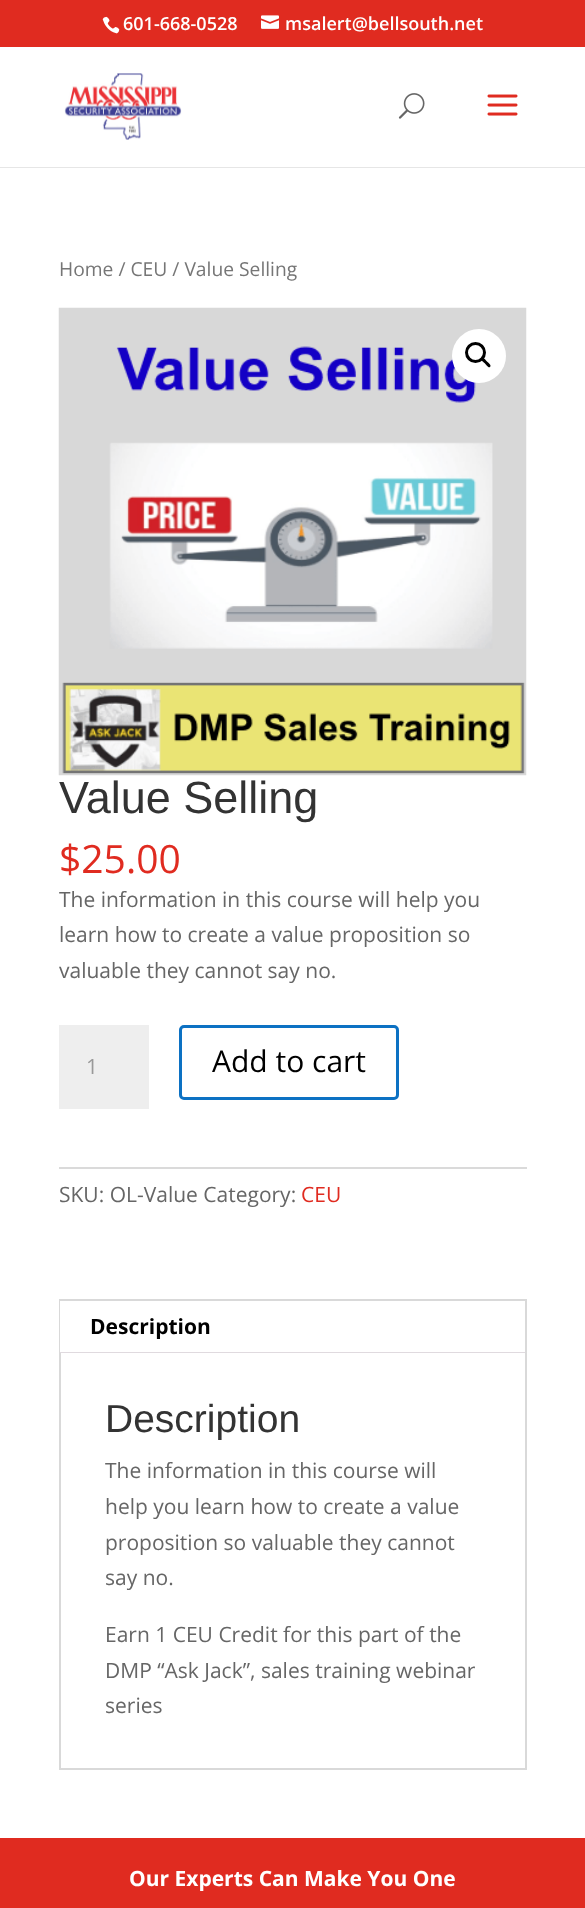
(async () => {
  const canvas = document.querySelector("canvas");
  canvas.width = 585;
  canvas.height = 1908;
  const ctx = canvas.getContext("2d");
  ctx.miterLimit = 4;
  ctx.fontKerning = "normal";
  async function loadImage(src) {
    const img = new Image();
    img.src = src;
    await img.decode();
    return img;
  }
  let path;

  ctx.fillStyle = "#ffffff";
  ctx.fillRect(0, 0, 585, 1908);
  ctx.fillStyle = "#e02b20";
  ctx.fillRect(0, 0, 585, 47);
  ctx.drawImage(await loadImage("img/1.png"), 102, 16, 18, 18);
  ctx.drawImage(await loadImage("img/2.png"), 261, 15, 18, 14);
  ctx.fillStyle = "#e6e6e6";
  ctx.fillRect(0, 167, 585, 1);
  ctx.drawImage(await loadImage("img/3.png"), 64, 73, 118, 67);
  ctx.drawImage(await loadImage("img/4.png"), 398, 93, 27, 26);
  ctx.drawImage(await loadImage("img/5.png"), 487, 94, 31, 22);
  ctx.drawImage(await loadImage("img/6.png"), 58, 307, 469, 469);
  ctx.fillStyle = "#ffffff";
  ctx.beginPath();
  ctx.arc(479, 356, 27, 0, Math.PI * 2);
  ctx.fill();
  ctx.beginPath();
  ctx.arc(475.5, 352.5, 9, 0, Math.PI * 2);
  ctx.strokeStyle = "#000000";
  ctx.lineWidth = 3;
  ctx.stroke();
  ctx.fillStyle = "#000000";
  path = new Path2D("M482 358.5C483.5 356.5 486 360.5 487 361.5C488 362.5 492 365 490 367C488.5 368.5 486 364.5 485 363.5C484 362.5 480 360 482 358.5Z");
  ctx.fill(path);
  ctx.fillStyle = "#eeeeee";
  ctx.fillRect(59, 1025, 90, 84);
  ctx.beginPath();
  ctx.roundRect(180.5, 1026.5, 217, 72, 3.5);
  ctx.strokeStyle = "#0c71c3";
  ctx.stroke();
  ctx.fillStyle = "#dadada";
  ctx.fillRect(59, 1167, 468, 2);
  ctx.strokeStyle = "#d9d9d9";
  ctx.lineWidth = 2;
  ctx.strokeRect(60, 1300, 466, 469);
  for (const [x, y, w, h, color] of [
    [60, 1301, 1, 51, "#ffffff"],
    [60, 1352, 465, 1, "#e0dadf"],
    [0, 1838, 585, 70, "#e02b20"],
  ]) {
    ctx.fillStyle = color;
    ctx.fillRect(x, y, w, h);
  }
  ctx.font = "600 18px Open Sans";
  ctx.fillStyle = "#ffffff";
  ctx.fillText("601-668-0528", 123, 30);
  ctx.fillText("msalert@bellsouth.net", 285, 30);
  ctx.font = "19.25px Open Sans";
  ctx.fillStyle = "#767676";
  ctx.fillText("Home / CEU / Value Selling", 59, 276);
  ctx.font = "45px Liberation Sans";
  ctx.fillStyle = "#333333";
  ctx.fillText("Value Selling", 59, 813);
  ctx.font = "39px Open Sans";
  ctx.fillStyle = "#e02b20";
  ctx.fillText("$25.00", 59, 873);
  ctx.font = "21px Open Sans";
  ctx.fillStyle = "#666666";
  for (const [text, x, y] of [
    ["The information in this course will help you", 59, 907],
    ["learn how to create a value proposition so", 59, 942],
    ["valuable they cannot say no.", 59, 978],
  ]) {
    ctx.fillText(text, x, y);
  }
  ctx.fillStyle = "#999999";
  ctx.fillText("1", 86, 1074);
  ctx.font = "30px Open Sans";
  ctx.fillStyle = "#000000";
  ctx.fillText("Add to cart", 212, 1072);
  ctx.font = "21px Open Sans";
  ctx.fillStyle = "#666666";
  ctx.fillText("SKU: OL-Value Category:", 59, 1202);
  ctx.fillStyle = "#e02b20";
  ctx.fillText("CEU", 301, 1202);
  ctx.font = "bold 21px Open Sans";
  ctx.fillStyle = "#000000";
  ctx.fillText("Description", 90, 1334);
  ctx.font = "39px Liberation Sans";
  ctx.fillStyle = "#333333";
  ctx.fillText("Description", 105, 1432);
  ctx.font = "21px Open Sans";
  ctx.fillStyle = "#666666";
  for (const [text, x, y] of [
    ["The information in this course will", 105, 1478],
    ["help you learn how to create a value", 105, 1514],
    ["proposition so valuable they cannot", 105, 1550],
    ["say no.", 105, 1585],
    ["Earn 1 CEU Credit for this part of the", 105, 1642],
    ["DMP “Ask Jack”, sales training webinar", 105, 1678],
    ["series", 105, 1713],
  ]) {
    ctx.fillText(text, x, y);
  }
  ctx.font = "bold 21px Open Sans";
  ctx.fillStyle = "#ffffff";
  ctx.fillText("Our Experts Can Make You One", 129, 1886);
})();
